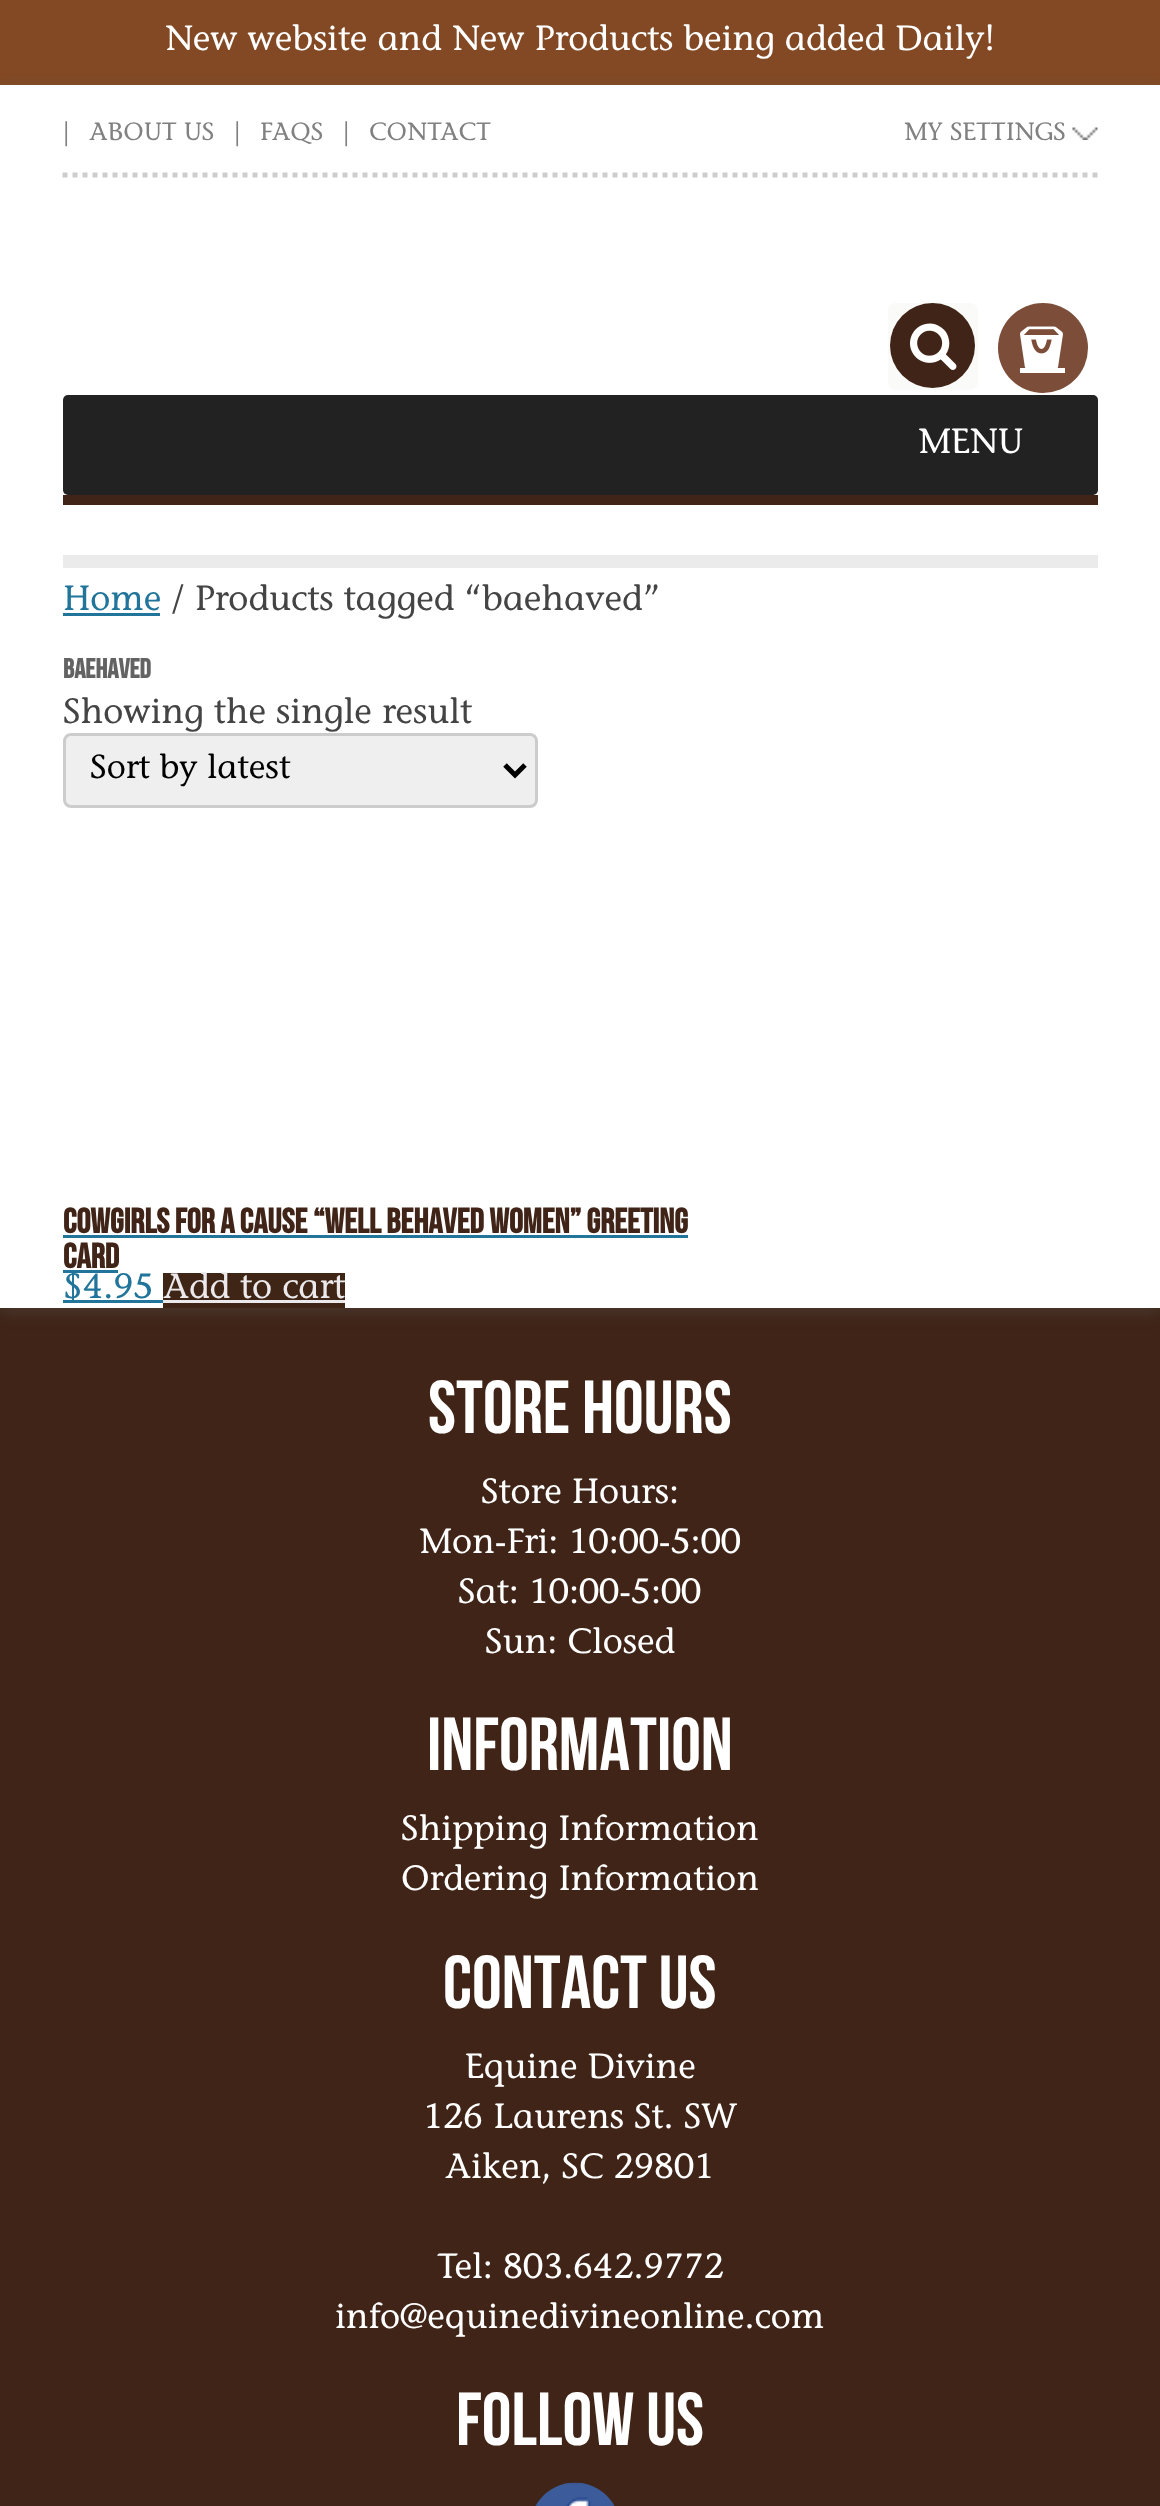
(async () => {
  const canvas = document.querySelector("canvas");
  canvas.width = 1160;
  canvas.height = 2506;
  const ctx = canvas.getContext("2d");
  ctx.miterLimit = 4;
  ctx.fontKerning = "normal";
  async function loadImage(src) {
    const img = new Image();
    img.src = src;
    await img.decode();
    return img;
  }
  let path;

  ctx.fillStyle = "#824924";
  ctx.fillRect(0, 0, 1160, 2506);
  ctx.fillStyle = "#3f2417";
  ctx.fillRect(0, 1308, 1160, 1198);
  ctx.fillStyle = "rgba(100, 100, 100, 0.3)";
  ctx.filter = "blur(7.5px)";
  ctx.beginPath();
  ctx.rect(0, 90, 1160, 1223);
  ctx.fill();
  ctx.filter = "none";
  ctx.fillStyle = "#ffffff";
  ctx.fillRect(0, 85, 1160, 1223);
  ctx.fillStyle = "#3f2417";
  ctx.fillRect(63, 495, 1035, 10);
  path = new Path2D("M62.5 175H1097.5");
  ctx.strokeStyle = "#cdcdcd";
  ctx.lineWidth = 5;
  ctx.setLineDash([5, 5]);
  ctx.stroke(path);
  ctx.drawImage(await loadImage("img/1.png"), 1072, 127, 26, 13);
  ctx.fillStyle = "#fafbf9";
  ctx.beginPath();
  ctx.roundRect(888, 303, 90, 87, 8);
  ctx.fill();
  ctx.fillStyle = "#402417";
  ctx.beginPath();
  ctx.arc(932.5, 345.5, 42.5, 0, Math.PI * 2);
  ctx.fill();
  ctx.drawImage(await loadImage("img/2.png"), 910, 323, 47, 47);
  ctx.fillStyle = "#7c4e39";
  ctx.beginPath();
  ctx.arc(1043, 348, 45, 0, Math.PI * 2);
  ctx.fill();
  ctx.drawImage(await loadImage("img/3.png"), 1020, 326, 43, 42);
  ctx.fillStyle = "#ffffff";
  ctx.fillRect(1020, 368, 45, 5);
  ctx.fillStyle = "#222222";
  ctx.beginPath();
  ctx.roundRect(63, 395, 1035, 100, 5);
  ctx.fill();
  ctx.fillStyle = "#ebebeb";
  ctx.fillRect(63, 555, 1035, 13);
  ctx.fillStyle = "#21759b";
  ctx.fillRect(63, 613, 97, 3);
  ctx.fillStyle = "#efefef";
  ctx.beginPath();
  ctx.roundRect(64.5, 734.5, 472, 72, 6.5);
  ctx.fill();
  ctx.strokeStyle = "#cccccc";
  ctx.lineWidth = 3;
  ctx.setLineDash([]);
  ctx.stroke();
  path = new Path2D("M505 765L515 775L525 765");
  ctx.strokeStyle = "#000000";
  ctx.lineWidth = 5;
  ctx.stroke(path);
  for (const [x, y, w, h, color] of [
    [63, 1235, 625, 3, "#21759b"],
    [63, 1270, 55, 3, "#21759b"],
    [63, 1300, 100, 3, "#21759b"],
    [163, 1273, 182, 35, "#3f2515"],
    [163, 1300, 182, 3, "#ebe9eb"],
  ]) {
    ctx.fillStyle = color;
    ctx.fillRect(x, y, w, h);
  }
  ctx.drawImage(await loadImage("img/4.png"), 535, 2482, 80, 24);
  ctx.font = "500 35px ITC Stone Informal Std";
  ctx.fillStyle = "#ffffff";
  ctx.fillText("New website and New Products being added Daily!", 165, 50);
  ctx.font = "500 25px ITC Stone Informal Std";
  ctx.fillStyle = "#818181";
  for (const [text, x, y] of [
    ["|", 63, 140],
    ["ABOUT US", 89, 140],
    ["|", 234, 140],
    ["FAQS", 260, 140],
    ["|", 343, 140],
    ["CONTACT", 369, 140],
    ["MY SETTINGS", 904, 140],
  ]) {
    ctx.fillText(text, x, y);
  }
  ctx.font = "500 35px ITC Stone Informal Std";
  ctx.fillStyle = "#ffffff";
  ctx.fillText("MENU", 918, 453);
  ctx.fillStyle = "#21759b";
  ctx.fillText("Home", 63, 610);
  ctx.fillStyle = "#444444";
  ctx.fillText("/ Products tagged “baehaved”", 171, 610);
  ctx.font = "bold 27.5px Bebas Neue";
  ctx.fillStyle = "#636363";
  ctx.fillText("BAEHAVED", 63, 678);
  ctx.font = "500 35px ITC Stone Informal Std";
  ctx.fillStyle = "#444444";
  ctx.fillText("Showing the single result", 63, 723);
  ctx.font = "500 33.25px ITC Stone Informal Std";
  ctx.fillStyle = "#000000";
  ctx.fillText("Sort by latest", 90, 778);
  ctx.font = "bold 35px Bebas Neue";
  ctx.fillStyle = "#402417";
  ctx.fillText("Cowgirls for a Cause “Well Behaved Women” Greeting", 63, 1233);
  ctx.fillText("Card", 63, 1268);
  ctx.font = "500 35px ITC Stone Informal Std";
  ctx.fillStyle = "#21759b";
  ctx.fillText("$4.95", 63, 1298);
  ctx.fillStyle = "#ebe9eb";
  ctx.fillText("Add to cart", 163, 1298);
  ctx.font = "75px Bebas Neue";
  ctx.fillStyle = "#ffffff";
  ctx.fillText("Store Hours", 428, 1433);
  ctx.font = "500 35px ITC Stone Informal Std";
  for (const [text, x, y] of [
    ["Store Hours:", 481, 1503],
    ["Mon-Fri: 10:00-5:00", 419, 1553],
    ["Sat: 10:00-5:00", 458, 1603],
    ["Sun: Closed", 485, 1653],
  ]) {
    ctx.fillText(text, x, y);
  }
  ctx.font = "75px Bebas Neue";
  ctx.fillText("Information", 427, 1770);
  ctx.font = "500 35px ITC Stone Informal Std";
  ctx.fillText("Shipping Information", 401, 1840);
  ctx.fillText("Ordering Information", 401, 1890);
  ctx.font = "75px Bebas Neue";
  ctx.fillText("Contact Us", 443, 2008);
  ctx.font = "500 35px ITC Stone Informal Std";
  for (const [text, x, y] of [
    ["Equine Divine", 465, 2078],
    ["126 Laurens St. SW", 423, 2128],
    ["Aiken, SC 29801", 445, 2178],
    ["Tel: 803.642.9772", 437, 2278],
    ["info@equinedivineonline.com", 335, 2328],
  ]) {
    ctx.fillText(text, x, y);
  }
  ctx.font = "75px Bebas Neue";
  ctx.fillText("Follow Us", 456, 2445);
})();
